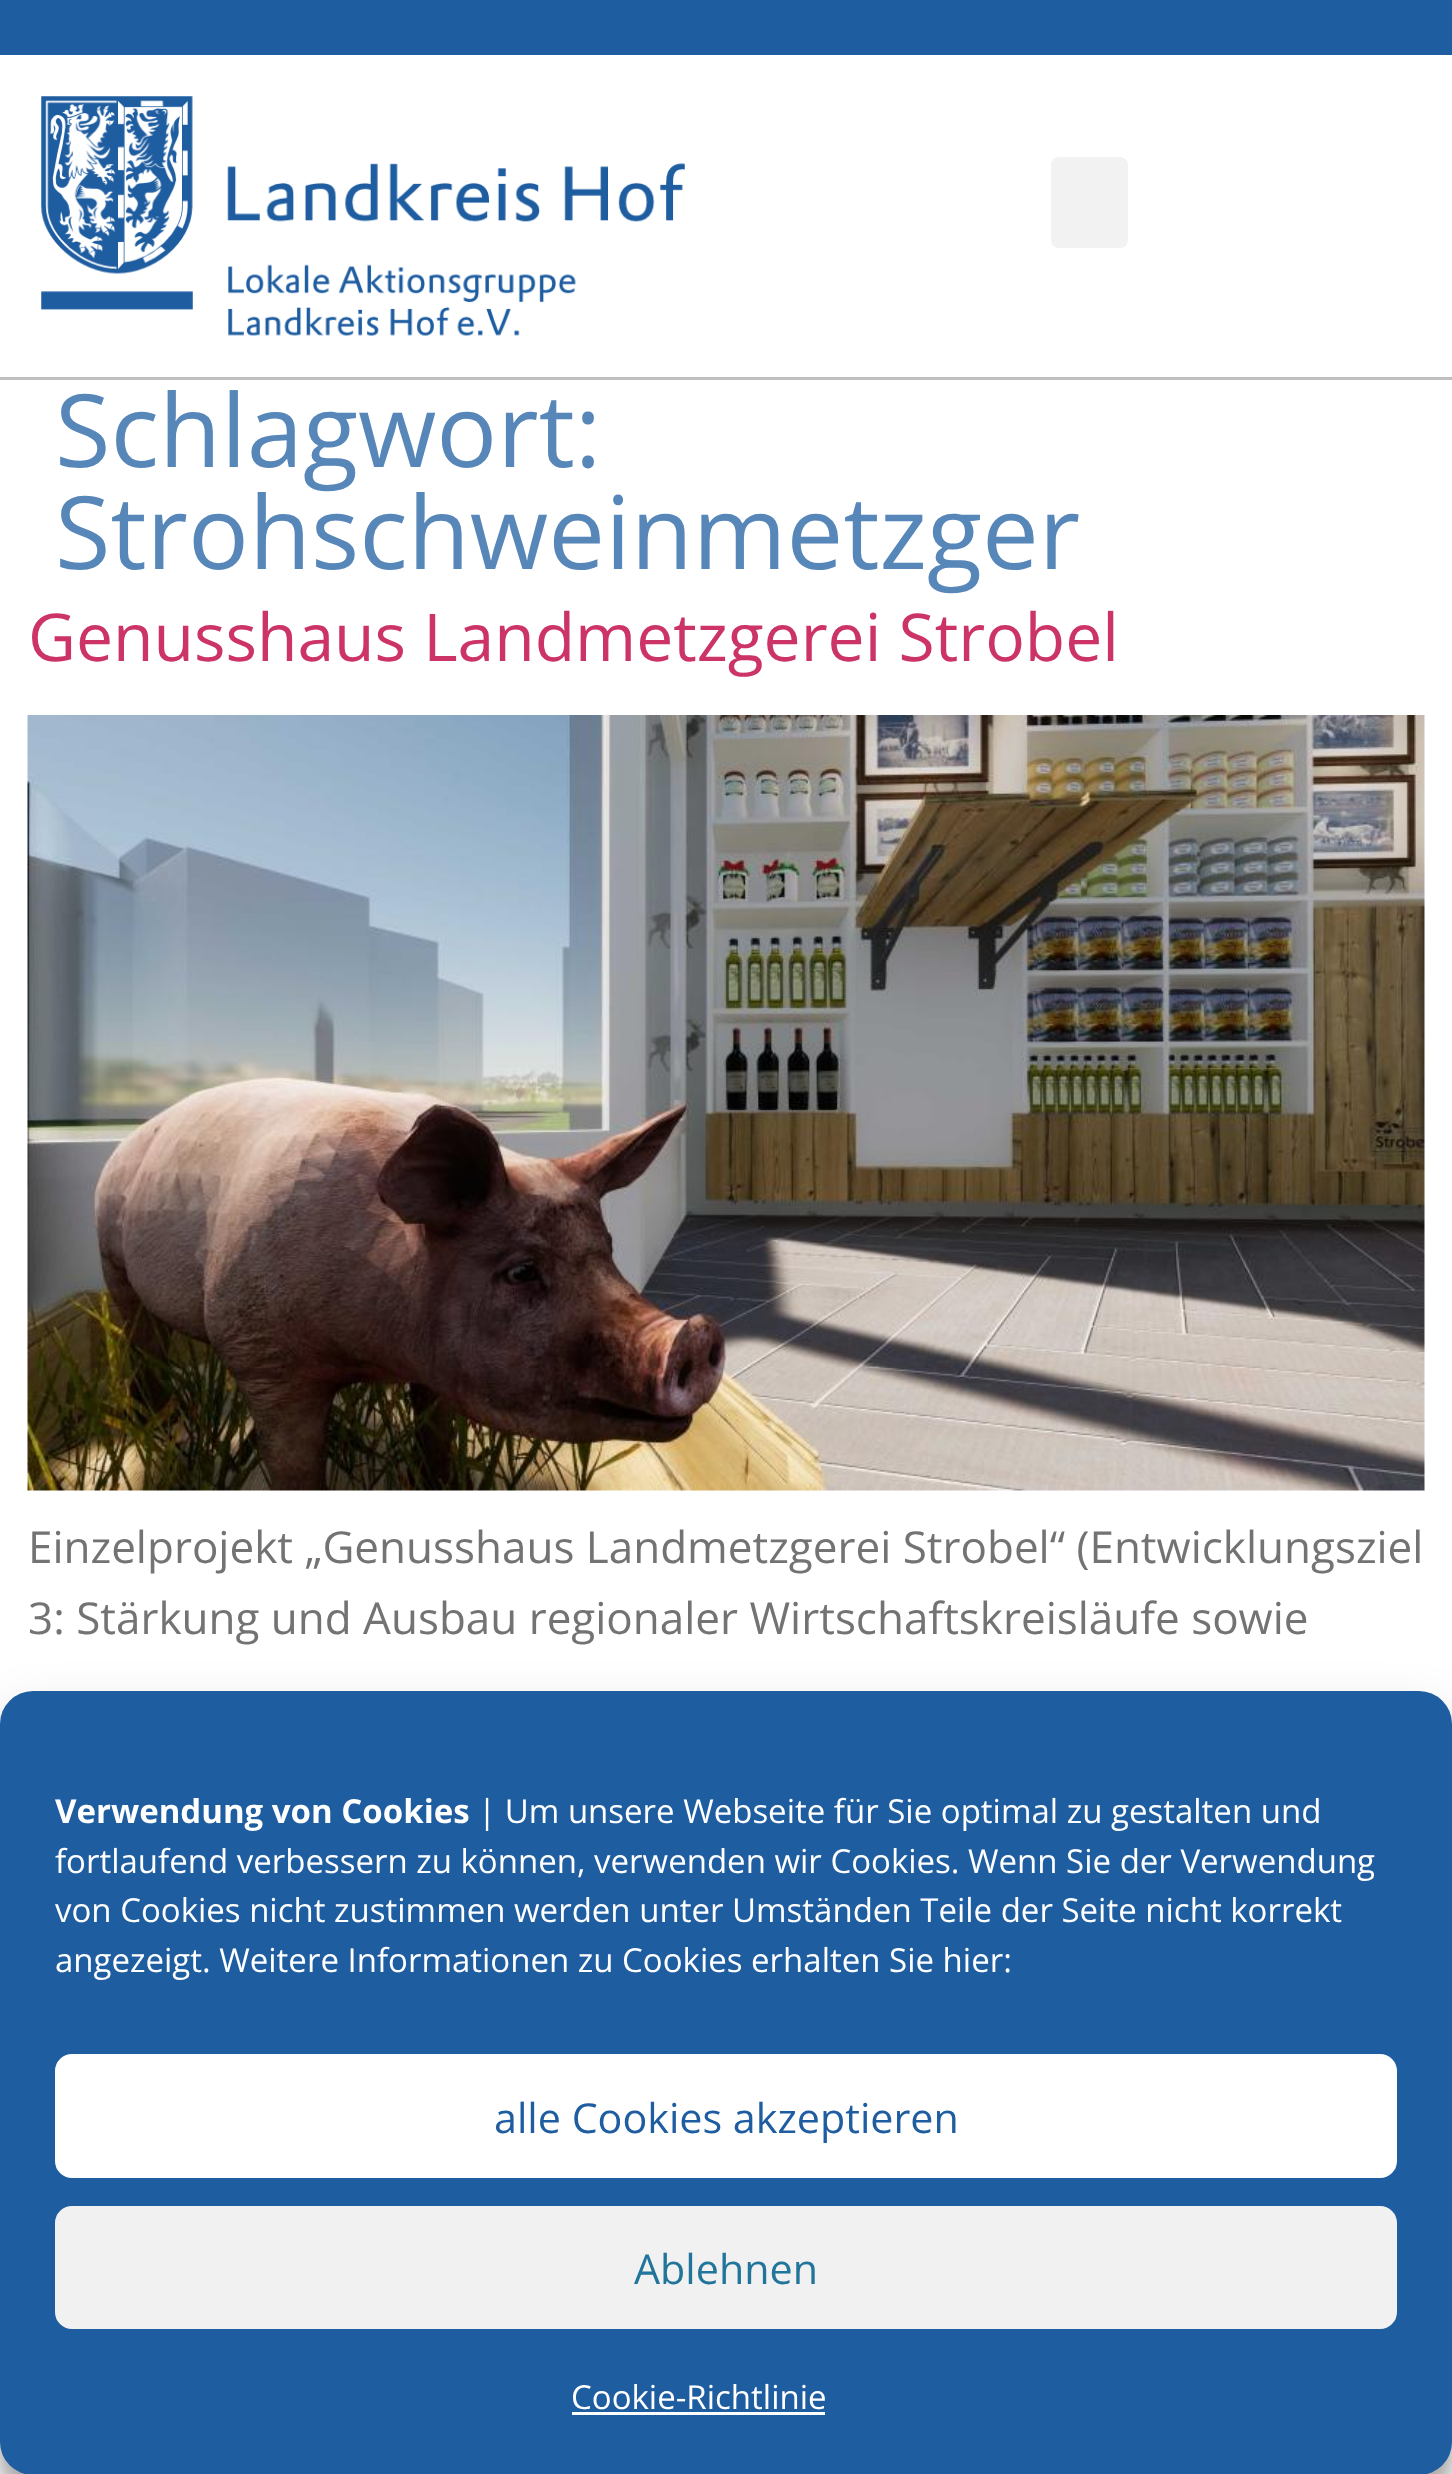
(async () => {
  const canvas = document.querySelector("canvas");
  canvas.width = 1452;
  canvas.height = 2474;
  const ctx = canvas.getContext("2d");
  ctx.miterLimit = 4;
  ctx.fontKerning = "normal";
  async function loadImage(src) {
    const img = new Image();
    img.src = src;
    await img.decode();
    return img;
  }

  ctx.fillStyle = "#ffffff";
  ctx.fillRect(0, 0, 1452, 2474);
  ctx.fillStyle = "#1f5da1";
  ctx.fillRect(0, 0, 1452, 55);
  ctx.fillStyle = "#bfbfbf";
  ctx.fillRect(0, 377, 1452, 3);
  ctx.drawImage(await loadImage("img/1.png"), 41, 96, 644, 240);
  ctx.fillStyle = "#f2f2f2";
  ctx.beginPath();
  ctx.roundRect(1051, 157, 77, 91, 8);
  ctx.fill();
  ctx.drawImage(await loadImage("img/2.png"), 27, 715, 1398, 776);
  ctx.fillStyle = "rgba(0, 0, 0, 0.23)";
  ctx.filter = "blur(8px)";
  ctx.beginPath();
  ctx.roundRect(0, 1708, 1452, 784, 33);
  ctx.fill();
  ctx.filter = "none";
  ctx.fillStyle = "rgba(0, 0, 0, 0.19)";
  ctx.filter = "blur(27.5px)";
  ctx.beginPath();
  ctx.roundRect(0, 1719, 1452, 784, 33);
  ctx.fill();
  ctx.filter = "none";
  ctx.fillStyle = "#1f5da1";
  ctx.beginPath();
  ctx.roundRect(0, 1691, 1452, 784, 33);
  ctx.fill();
  ctx.fillStyle = "#ffffff";
  ctx.beginPath();
  ctx.roundRect(56.5, 2055.5, 1339, 121, 15.5);
  ctx.fill();
  ctx.strokeStyle = "#ffffff";
  ctx.lineWidth = 3;
  ctx.stroke();
  ctx.fillStyle = "#f1f1f1";
  ctx.beginPath();
  ctx.roundRect(56.5, 2207.5, 1339, 120, 15.5);
  ctx.fill();
  ctx.strokeStyle = "#f1f1f1";
  ctx.stroke();
  ctx.fillStyle = "#ffffff";
  ctx.fillRect(572, 2412, 253, 3);
  ctx.font = "101.25px Open Sans";
  ctx.fillStyle = "#5786b9";
  ctx.fillText("Schlagwort:", 55, 467);
  ctx.fillText("Strohschweinmetzger", 55, 569);
  ctx.font = "66px Open Sans";
  ctx.fillStyle = "#cc3366";
  ctx.fillText("Genusshaus Landmetzgerei Strobel", 28, 661);
  ctx.font = "44px Open Sans";
  ctx.fillStyle = "#737373";
  ctx.fillText("Einzelprojekt „Genusshaus Landmetzgerei Strobel“ (Entwicklungsziel", 28, 1563);
  ctx.fillText("3: Stärkung und Ausbau regionaler Wirtschaftskreisläufe sowie", 28, 1634);
  ctx.font = "bold 33px Open Sans";
  ctx.fillStyle = "#ffffff";
  ctx.fillText("Verwendung von Cookies", 55, 1823);
  ctx.font = "33px Open Sans";
  for (const [text, x, y] of [
    ["| Um unsere Webseite für Sie optimal zu gestalten und", 478, 1823],
    ["fortlaufend verbessern zu können, verwenden wir Cookies. Wenn Sie der Verwendung", 55, 1873],
    ["von Cookies nicht zustimmen werden unter Umständen Teile der Seite nicht korrekt", 55, 1922],
    ["angezeigt. Weitere Informationen zu Cookies erhalten Sie hier:", 55, 1972],
  ]) {
    ctx.fillText(text, x, y);
  }
  ctx.font = "41.25px Open Sans";
  ctx.fillStyle = "#1f5da1";
  ctx.fillText("alle Cookies akzeptieren", 494, 2133);
  ctx.fillStyle = "#21759b";
  ctx.fillText("Ablehnen", 634, 2284);
  ctx.font = "33px Open Sans";
  ctx.fillStyle = "#ffffff";
  ctx.fillText("Cookie-Richtlinie", 571, 2409);
})();
